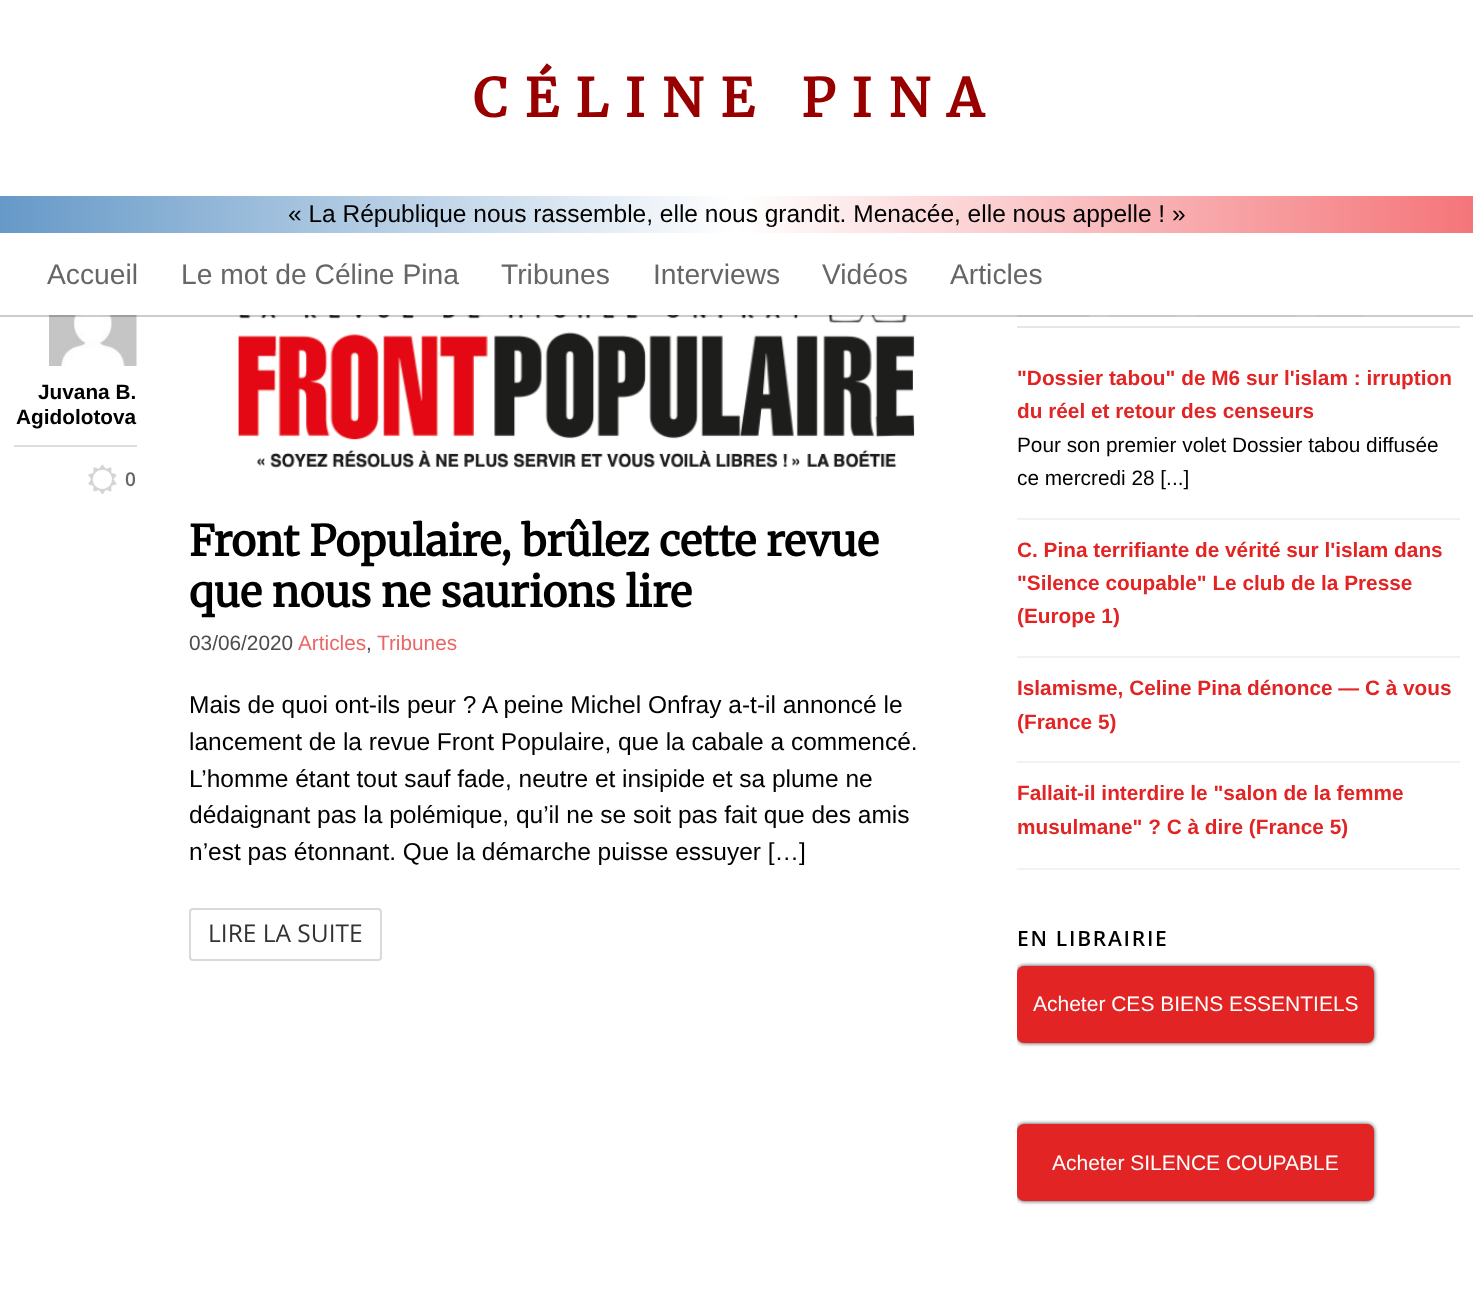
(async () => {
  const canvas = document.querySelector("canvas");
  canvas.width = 1473;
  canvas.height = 1302;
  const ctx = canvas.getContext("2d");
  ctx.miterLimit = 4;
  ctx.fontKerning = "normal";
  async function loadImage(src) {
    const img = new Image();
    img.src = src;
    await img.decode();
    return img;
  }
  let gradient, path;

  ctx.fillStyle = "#ffffff";
  ctx.fillRect(0, 0, 1473, 1302);
  ctx.drawImage(await loadImage("img/1.png"), 49, 315, 88, 51);
  ctx.drawImage(await loadImage("img/3.png"), 238, 315, 677, 153);
  for (const [x, y, w, h, color] of [
    [1017, 315, 72, 2, "#f2f2f2"],
    [1110, 315, 66, 2, "#f9f9f9"],
    [1197, 315, 100, 2, "#f9f9f9"],
    [1318, 315, 45, 2, "#f9f9f9"],
  ]) {
    ctx.fillStyle = color;
    ctx.fillRect(x, y, w, h);
  }
  ctx.fillStyle = "rgba(0, 0, 0, 0.2)";
  path = new Path2D("M0 315V317H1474V2V315Z");
  ctx.fill(path);
  gradient = ctx.createLinearGradient(0, 214, 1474, 214);
  gradient.addColorStop(0, "#6699c8");
  gradient.addColorStop(0.5, "#ffffff");
  gradient.addColorStop(1, "#f47579");
  ctx.fillStyle = gradient;
  ctx.fillRect(0, 196, 1473, 37);
  ctx.fillStyle = "#dddddd";
  ctx.fillRect(14, 445, 123, 2);
  ctx.drawImage(await loadImage("img/2.png"), 88, 464, 29, 31);
  ctx.beginPath();
  ctx.roundRect(190, 909, 191, 51, 3);
  ctx.strokeStyle = "#d9d9d9";
  ctx.lineWidth = 2;
  ctx.stroke();
  for (const [x, y, w, h, color] of [
    [1017, 326, 443, 2, "#e6e6e6"],
    [1017, 518, 443, 2, "#f2f2f2"],
    [1017, 656, 443, 2, "#f2f2f2"],
    [1017, 761, 443, 2, "#f2f2f2"],
    [1017, 868, 443, 2, "#f2f2f2"],
  ]) {
    ctx.fillStyle = color;
    ctx.fillRect(x, y, w, h);
  }
  ctx.save();
  ctx.beginPath();
  ctx.rect(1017, 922, 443, 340);
  ctx.clip();
  ctx.fillStyle = "#333333";
  ctx.filter = "blur(2px)";
  ctx.beginPath();
  ctx.roundRect(1017, 966, 357, 77, 7);
  ctx.fill();
  ctx.filter = "none";
  ctx.restore();
  ctx.fillStyle = "#e22424";
  ctx.beginPath();
  ctx.roundRect(1019, 968, 353, 73, 5);
  ctx.fill();
  ctx.strokeStyle = "#e22424";
  ctx.lineWidth = 4;
  ctx.stroke();
  ctx.save();
  ctx.beginPath();
  ctx.rect(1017, 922, 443, 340);
  ctx.clip();
  ctx.fillStyle = "#333333";
  ctx.filter = "blur(2px)";
  ctx.beginPath();
  ctx.roundRect(1017, 1124, 357, 77, 7);
  ctx.fill();
  ctx.filter = "none";
  ctx.restore();
  ctx.beginPath();
  ctx.roundRect(1019, 1126, 353, 73, 5);
  ctx.fill();
  ctx.stroke();
  ctx.letterSpacing = "17.5px";
  ctx.font = "bold 52.5px Merriweather";
  ctx.fillStyle = "#980000";
  ctx.fillText("CÉLINE PINA", 473, 117);
  ctx.letterSpacing = "0px";
  ctx.font = "24.5px Liberation Sans";
  ctx.fillStyle = "#000000";
  ctx.fillText("« La République nous rassemble, elle nous grandit. Menacée, elle nous appelle ! »", 288, 222);
  ctx.font = "28.25px Liberation Sans";
  ctx.fillStyle = "#666666";
  for (const [text, x, y] of [
    ["Accueil", 47, 284],
    ["Le mot de Céline Pina", 181, 284],
    ["Tribunes", 501, 284],
    ["Interviews", 653, 284],
    ["Vidéos", 822, 284],
    ["Articles", 950, 284],
  ]) {
    ctx.fillText(text, x, y);
  }
  ctx.font = "bold 20.8px Liberation Sans";
  ctx.fillStyle = "#000000";
  ctx.fillText("Juvana B.", 38, 399);
  ctx.fillText("Agidolotova", 16, 424);
  ctx.font = "600 19px Open Sans";
  ctx.fillStyle = "#666666";
  ctx.fillText("0", 125, 486);
  ctx.font = "bold 42px Merriweather";
  ctx.fillStyle = "#000000";
  ctx.fillText("Front Populaire, brûlez cette revue", 189, 556);
  ctx.fillText("que nous ne saurions lire", 189, 607);
  ctx.font = "20.8px Liberation Sans";
  ctx.fillStyle = "#4d4d4d";
  ctx.fillText("03/06/2020", 189, 650);
  ctx.fillStyle = "#eb6666";
  ctx.fillText("Articles", 298, 650);
  ctx.fillStyle = "#4d4d4d";
  ctx.fillText(",", 366, 650);
  ctx.fillStyle = "#eb6666";
  ctx.fillText("Tribunes", 377, 650);
  ctx.font = "24.5px Liberation Sans";
  ctx.fillStyle = "#000000";
  for (const [text, x, y] of [
    ["Mais de quoi ont-ils peur ? A peine Michel Onfray a-t-il annoncé le", 189, 713],
    ["lancement de la revue Front Populaire, que la cabale a commencé.", 189, 750],
    ["L’homme étant tout sauf fade, neutre et insipide et sa plume ne", 189, 787],
    ["dédaignant pas la polémique, qu’il ne se soit pas fait que des amis", 189, 823],
    ["n’est pas étonnant. Que la démarche puisse essuyer […]", 189, 860],
  ]) {
    ctx.fillText(text, x, y);
  }
  ctx.font = "24.5px Open Sans";
  ctx.fillStyle = "#333333";
  ctx.fillText("LIRE LA SUITE", 208, 942);
  ctx.font = "bold 20.8px Liberation Sans";
  ctx.fillStyle = "#e22424";
  ctx.fillText("\"Dossier tabou\" de M6 sur l'islam : irruption", 1017, 385);
  ctx.fillText("du réel et retour des censeurs", 1017, 418);
  ctx.font = "20.8px Liberation Sans";
  ctx.fillStyle = "#000000";
  ctx.fillText("Pour son premier volet Dossier tabou diffusée", 1017, 452);
  ctx.fillText("ce mercredi 28 [...]", 1017, 485);
  ctx.font = "bold 20.8px Liberation Sans";
  ctx.fillStyle = "#e22424";
  for (const [text, x, y] of [
    ["C. Pina terrifiante de vérité sur l'islam dans", 1017, 557],
    ["\"Silence coupable\" Le club de la Presse", 1017, 590],
    ["(Europe 1)", 1017, 623],
    ["Islamisme, Celine Pina dénonce — C à vous", 1017, 695],
    ["(France 5)", 1017, 729],
    ["Fallait-il interdire le \"salon de la femme", 1017, 800],
    ["musulmane\" ? C à dire (France 5)", 1017, 834],
  ]) {
    ctx.fillText(text, x, y);
  }
  ctx.letterSpacing = "1.75px";
  ctx.font = "600 21px Open Sans";
  ctx.fillStyle = "#000000";
  ctx.fillText("EN LIBRAIRIE", 1017, 946);
  ctx.letterSpacing = "0px";
  ctx.font = "21px Liberation Sans";
  ctx.fillStyle = "#ffffff";
  ctx.fillText("Acheter CES BIENS ESSENTIELS", 1033, 1011);
  ctx.fillText("Acheter SILENCE COUPABLE", 1052, 1170);
})();
